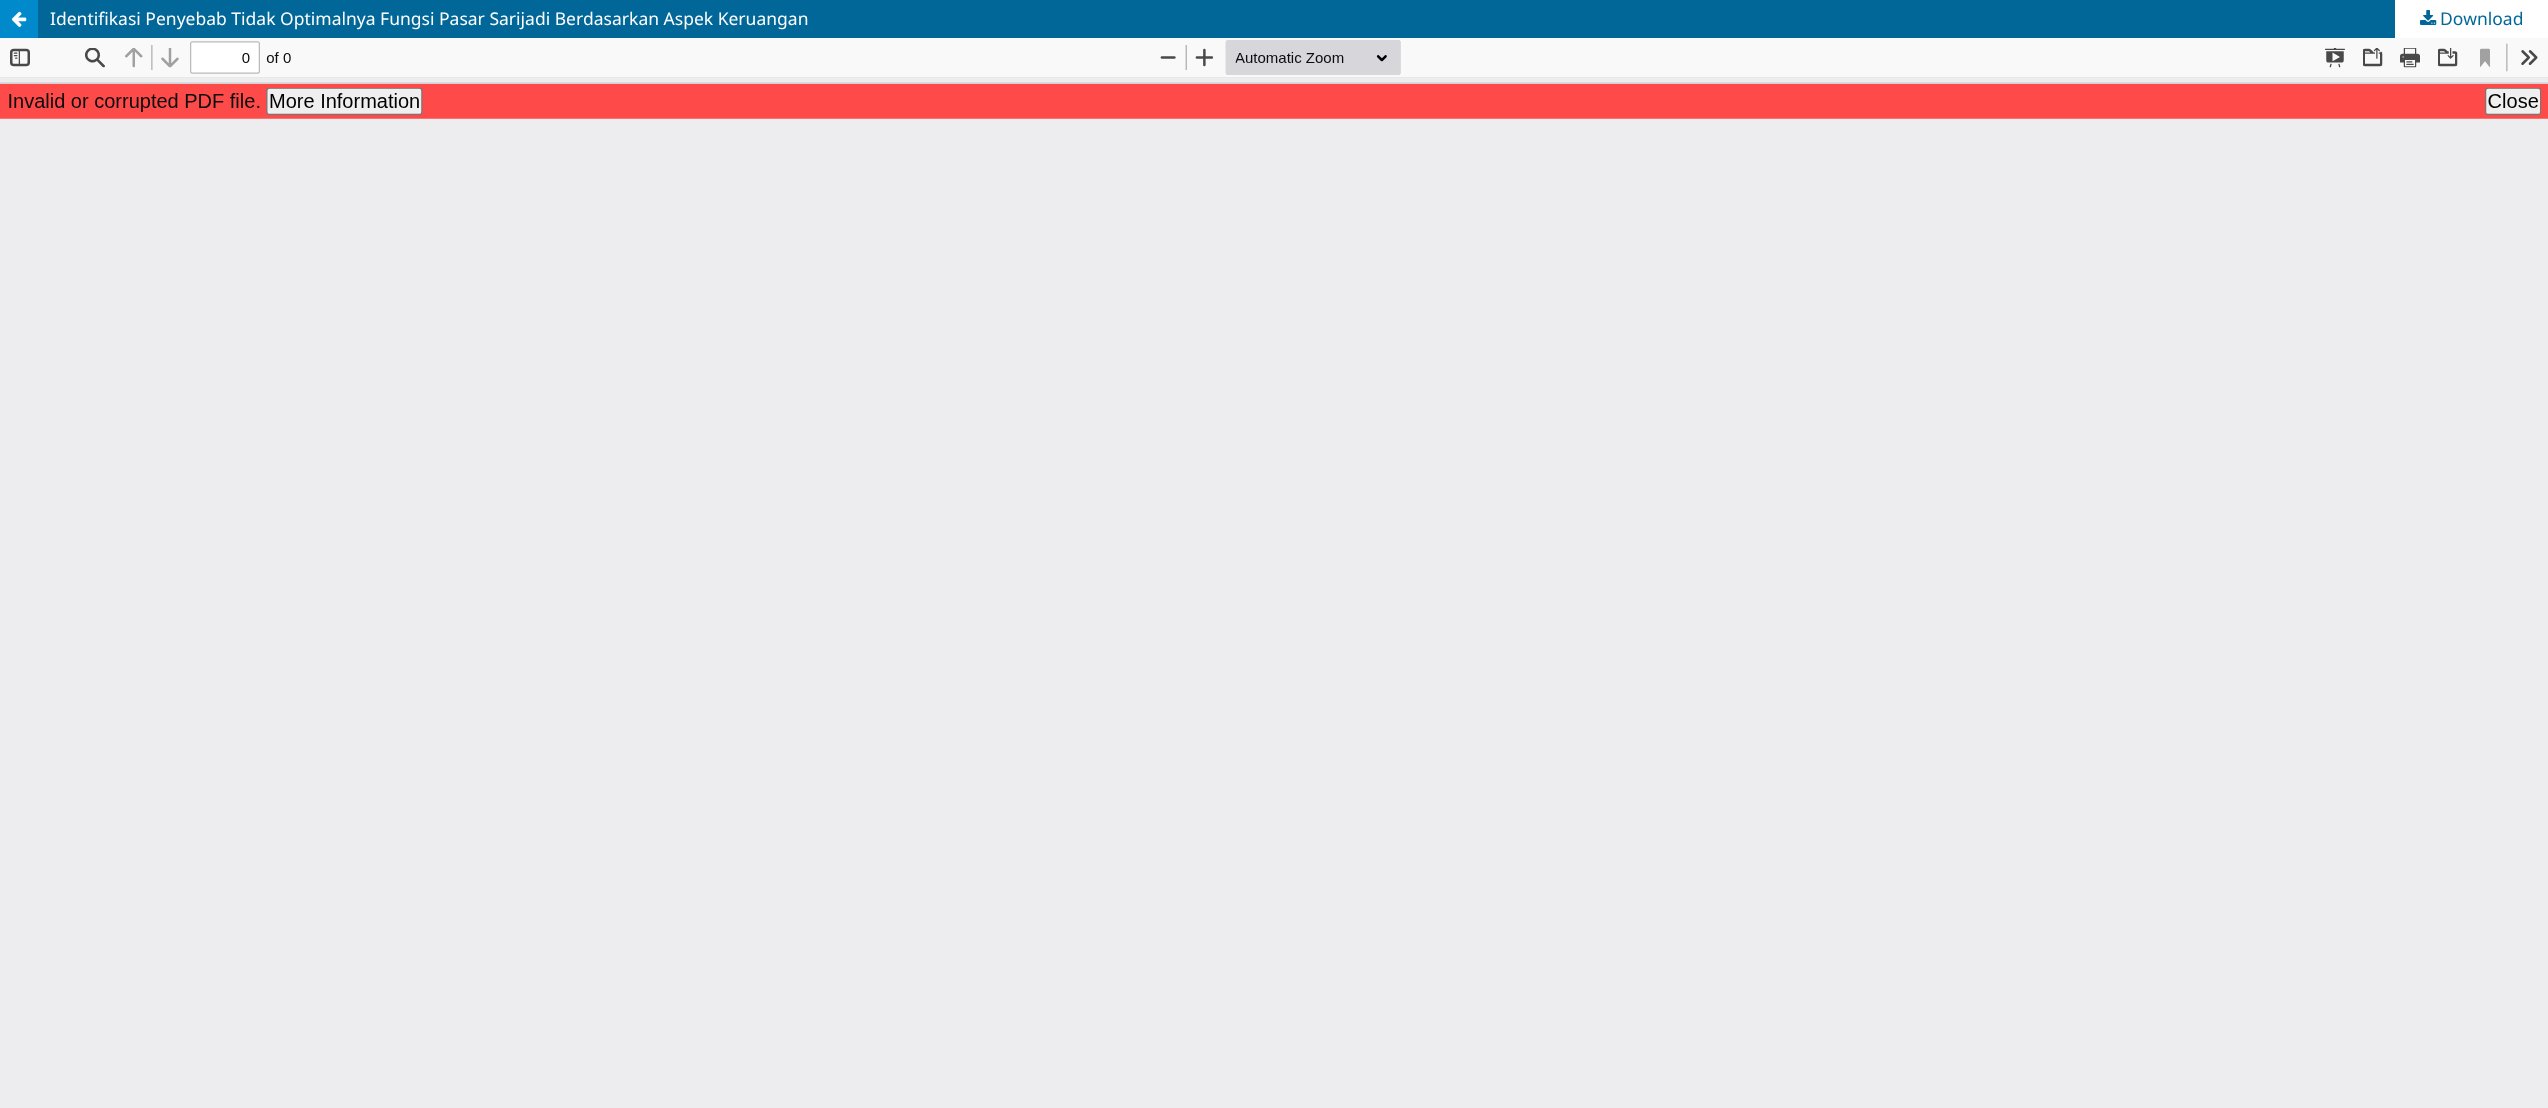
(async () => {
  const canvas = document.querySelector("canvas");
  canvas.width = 2548;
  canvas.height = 1108;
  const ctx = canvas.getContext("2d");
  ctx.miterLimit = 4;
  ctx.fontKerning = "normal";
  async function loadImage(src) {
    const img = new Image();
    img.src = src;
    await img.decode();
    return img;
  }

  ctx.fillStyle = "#ffffff";
  ctx.fillRect(0, 0, 2548, 1108);
  ctx.fillStyle = "#006798";
  ctx.fillRect(38, 0, 2357, 38);
  ctx.fillStyle = "#008acb";
  ctx.fillRect(0, 0, 38, 38);
  ctx.drawImage(await loadImage("img/1.png"), 11, 11, 16, 16);
  ctx.drawImage(await loadImage("img/2.png"), 2420, 10, 17, 15);
  ctx.drawImage(await loadImage("img/3.png"), 0, 38, 2548, 1070);
  ctx.font = "17.5px Noto Sans";
  ctx.fillStyle = "#ffffff";
  ctx.fillText("Identifikasi Penyebab Tidak Optimalnya Fungsi Pasar Sarijadi Berdasarkan Aspek Keruangan", 50, 25);
  ctx.fillStyle = "#006798";
  ctx.fillText("Download", 2440, 25);
})();
